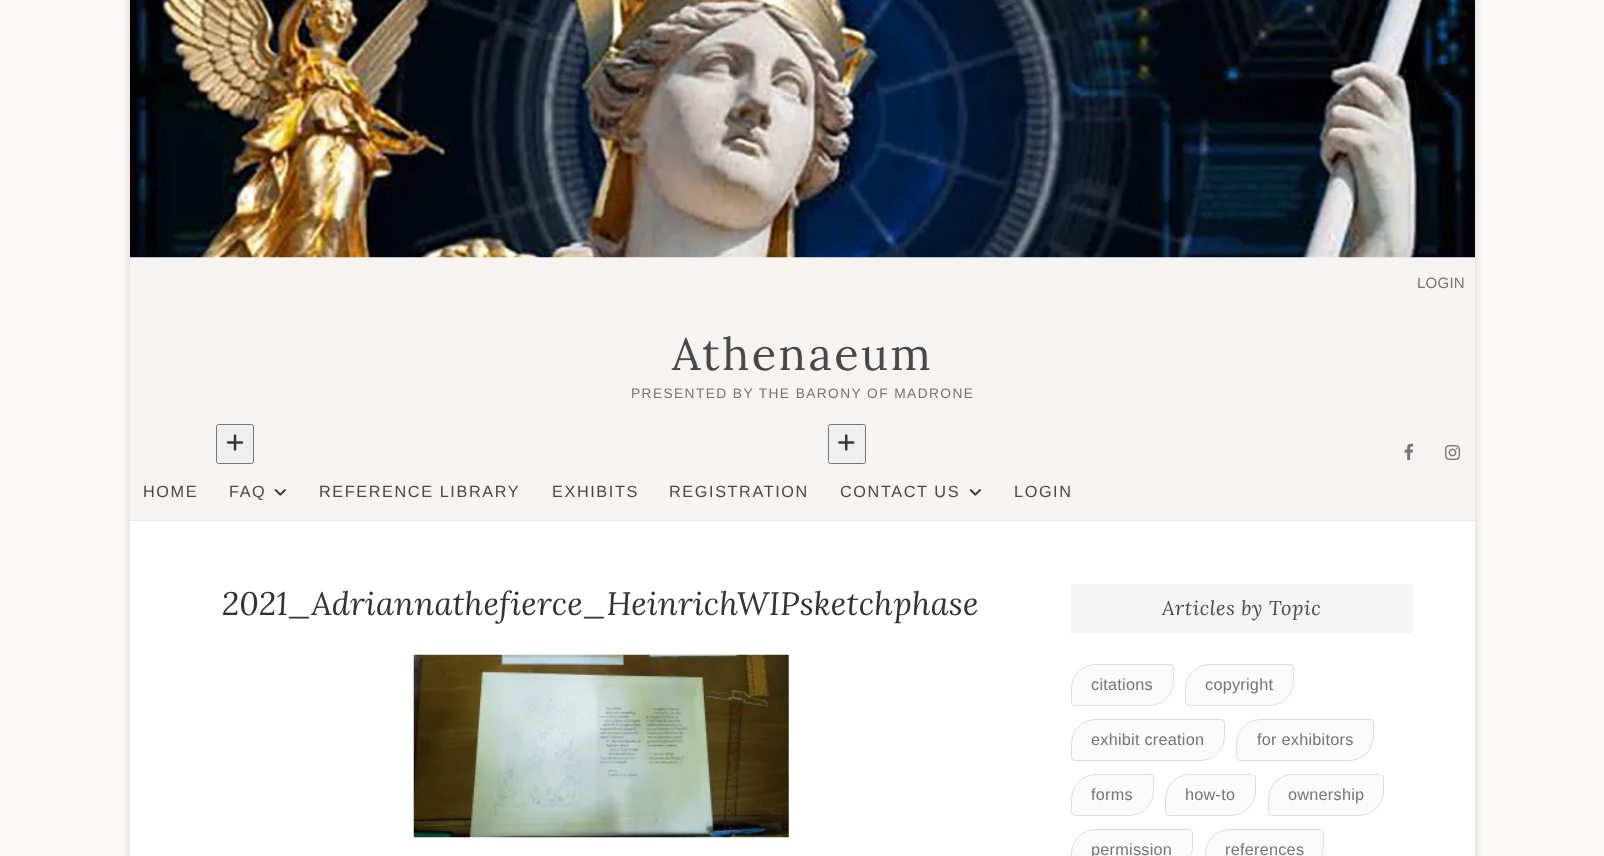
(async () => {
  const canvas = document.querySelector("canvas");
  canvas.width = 1604;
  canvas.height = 856;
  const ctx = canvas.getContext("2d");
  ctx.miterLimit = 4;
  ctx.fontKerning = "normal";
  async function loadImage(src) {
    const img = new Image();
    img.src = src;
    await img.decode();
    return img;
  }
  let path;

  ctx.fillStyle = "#fbf9f8";
  ctx.fillRect(0, 0, 1604, 856);
  ctx.fillStyle = "rgba(0, 0, 0, 0.15)";
  ctx.filter = "blur(4px)";
  ctx.beginPath();
  ctx.rect(130, -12, 1345, 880);
  ctx.fill();
  ctx.filter = "none";
  ctx.fillStyle = "#ffffff";
  ctx.fillRect(130, 521, 1345, 335);
  ctx.fillStyle = "#f6f3f1";
  ctx.fillRect(130, 257, 1345, 263);
  ctx.drawImage(await loadImage("img/1.png"), 130, 0, 1345, 258);
  ctx.fillStyle = "#eae7e5";
  ctx.fillRect(130, 520, 1345, 1);
  ctx.drawImage(await loadImage("img/2.png"), 1404, 443, 10, 17);
  ctx.drawImage(await loadImage("img/3.png"), 1445, 445, 15, 15);
  ctx.fillStyle = "#efefef";
  ctx.beginPath();
  ctx.roundRect(216.5, 424.5, 37, 39, 2);
  ctx.fill();
  ctx.strokeStyle = "#767676";
  ctx.stroke();
  ctx.drawImage(await loadImage("img/4.png"), 226, 434, 18, 17);
  ctx.drawImage(await loadImage("img/5.png"), 274, 489, 12, 7);
  ctx.beginPath();
  ctx.roundRect(828.5, 424.5, 37, 39, 2);
  ctx.fill();
  ctx.stroke();
  ctx.drawImage(await loadImage("img/6.png"), 838, 434, 17, 17);
  ctx.drawImage(await loadImage("img/5.png"), 969, 489, 12, 7);
  ctx.drawImage(await loadImage("img/7.png"), 413, 654, 376, 184);
  ctx.fillStyle = "#f4f4f4";
  ctx.fillRect(1071, 584, 342, 49);
  ctx.fillStyle = "#fafafa";
  ctx.beginPath();
  ctx.roundRect(1071.5, 664.5, 102, 41, [24.5, 3.5, 24.5, 3.5]);
  ctx.fill();
  ctx.strokeStyle = "#dddddd";
  ctx.stroke();
  ctx.beginPath();
  ctx.roundRect(1185.5, 664.5, 108, 41, [24.5, 3.5, 24.5, 3.5]);
  ctx.fill();
  ctx.stroke();
  ctx.beginPath();
  ctx.roundRect(1071.5, 719.5, 153, 41, [24.5, 3.5, 24.5, 3.5]);
  ctx.fill();
  ctx.stroke();
  ctx.beginPath();
  ctx.roundRect(1236.5, 719.5, 137, 41, [24.5, 3.5, 24.5, 3.5]);
  ctx.fill();
  ctx.stroke();
  ctx.beginPath();
  ctx.roundRect(1071.5, 774.5, 82, 41, [24.5, 3.5, 24.5, 3.5]);
  ctx.fill();
  ctx.stroke();
  ctx.beginPath();
  ctx.roundRect(1165.5, 774.5, 90, 41, [24.5, 3.5, 24.5, 3.5]);
  ctx.fill();
  ctx.stroke();
  ctx.beginPath();
  ctx.roundRect(1268.5, 774.5, 115, 41, [24.5, 3.5, 24.5, 3.5]);
  ctx.fill();
  ctx.stroke();
  path = new Path2D("M1096 829.5H1189C1191 829.5 1192.5 831 1192.5 833V846C1192.5 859.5 1181.5 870.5 1168 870.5H1075C1073 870.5 1071.5 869 1071.5 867V854C1071.5 840.5 1082.5 829.5 1096 829.5Z");
  ctx.fill(path);
  ctx.stroke(path);
  path = new Path2D("M1230 829.5H1320C1322 829.5 1323.5 831 1323.5 833V846C1323.5 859.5 1312.5 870.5 1299 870.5H1209C1207 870.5 1205.5 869 1205.5 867V854C1205.5 840.5 1216.5 829.5 1230 829.5Z");
  ctx.fill(path);
  ctx.stroke(path);
  ctx.letterSpacing = "0.25px";
  ctx.font = "15px Liberation Sans";
  ctx.fillStyle = "#747474";
  ctx.fillText("LOGIN", 1417, 288);
  ctx.letterSpacing = "2.5px";
  ctx.font = "45px Lora";
  ctx.fillStyle = "#484848";
  ctx.fillText("Athenaeum", 672, 370);
  ctx.letterSpacing = "1.4px";
  ctx.font = "13.75px Liberation Sans";
  ctx.fillStyle = "#747474";
  ctx.fillText("PRESENTED BY THE BARONY OF MADRONE", 631, 398);
  ctx.letterSpacing = "1.6px";
  ctx.font = "16.25px Liberation Sans";
  ctx.fillStyle = "#484848";
  for (const [text, x, y] of [
    ["HOME", 143, 497],
    ["FAQ", 229, 497],
    ["REFERENCE LIBRARY", 319, 497],
    ["EXHIBITS", 552, 497],
    ["REGISTRATION", 669, 497],
    ["CONTACT US", 840, 497],
    ["LOGIN", 1014, 497],
  ]) {
    ctx.fillText(text, x, y);
  }
  ctx.letterSpacing = "0.25px";
  ctx.font = "italic 32.5px Lora";
  ctx.fillStyle = "#333333";
  ctx.fillText("2021_Adriannathefierce_HeinrichWIPsketchphase", 222, 615);
  ctx.letterSpacing = "0.6px";
  ctx.font = "italic 20px Lora";
  ctx.fillStyle = "#484848";
  ctx.fillText("Articles by Topic", 1162, 615);
  ctx.letterSpacing = "0.25px";
  ctx.font = "16.25px Liberation Sans";
  ctx.fillStyle = "#747474";
  for (const [text, x, y] of [
    ["citations", 1091, 690],
    ["copyright", 1205, 690],
    ["exhibit creation", 1091, 745],
    ["for exhibitors", 1257, 745],
    ["forms", 1091, 800],
    ["how-to", 1185, 800],
    ["ownership", 1288, 800],
    ["permission", 1091, 855],
    ["references", 1225, 855],
  ]) {
    ctx.fillText(text, x, y);
  }
})();
